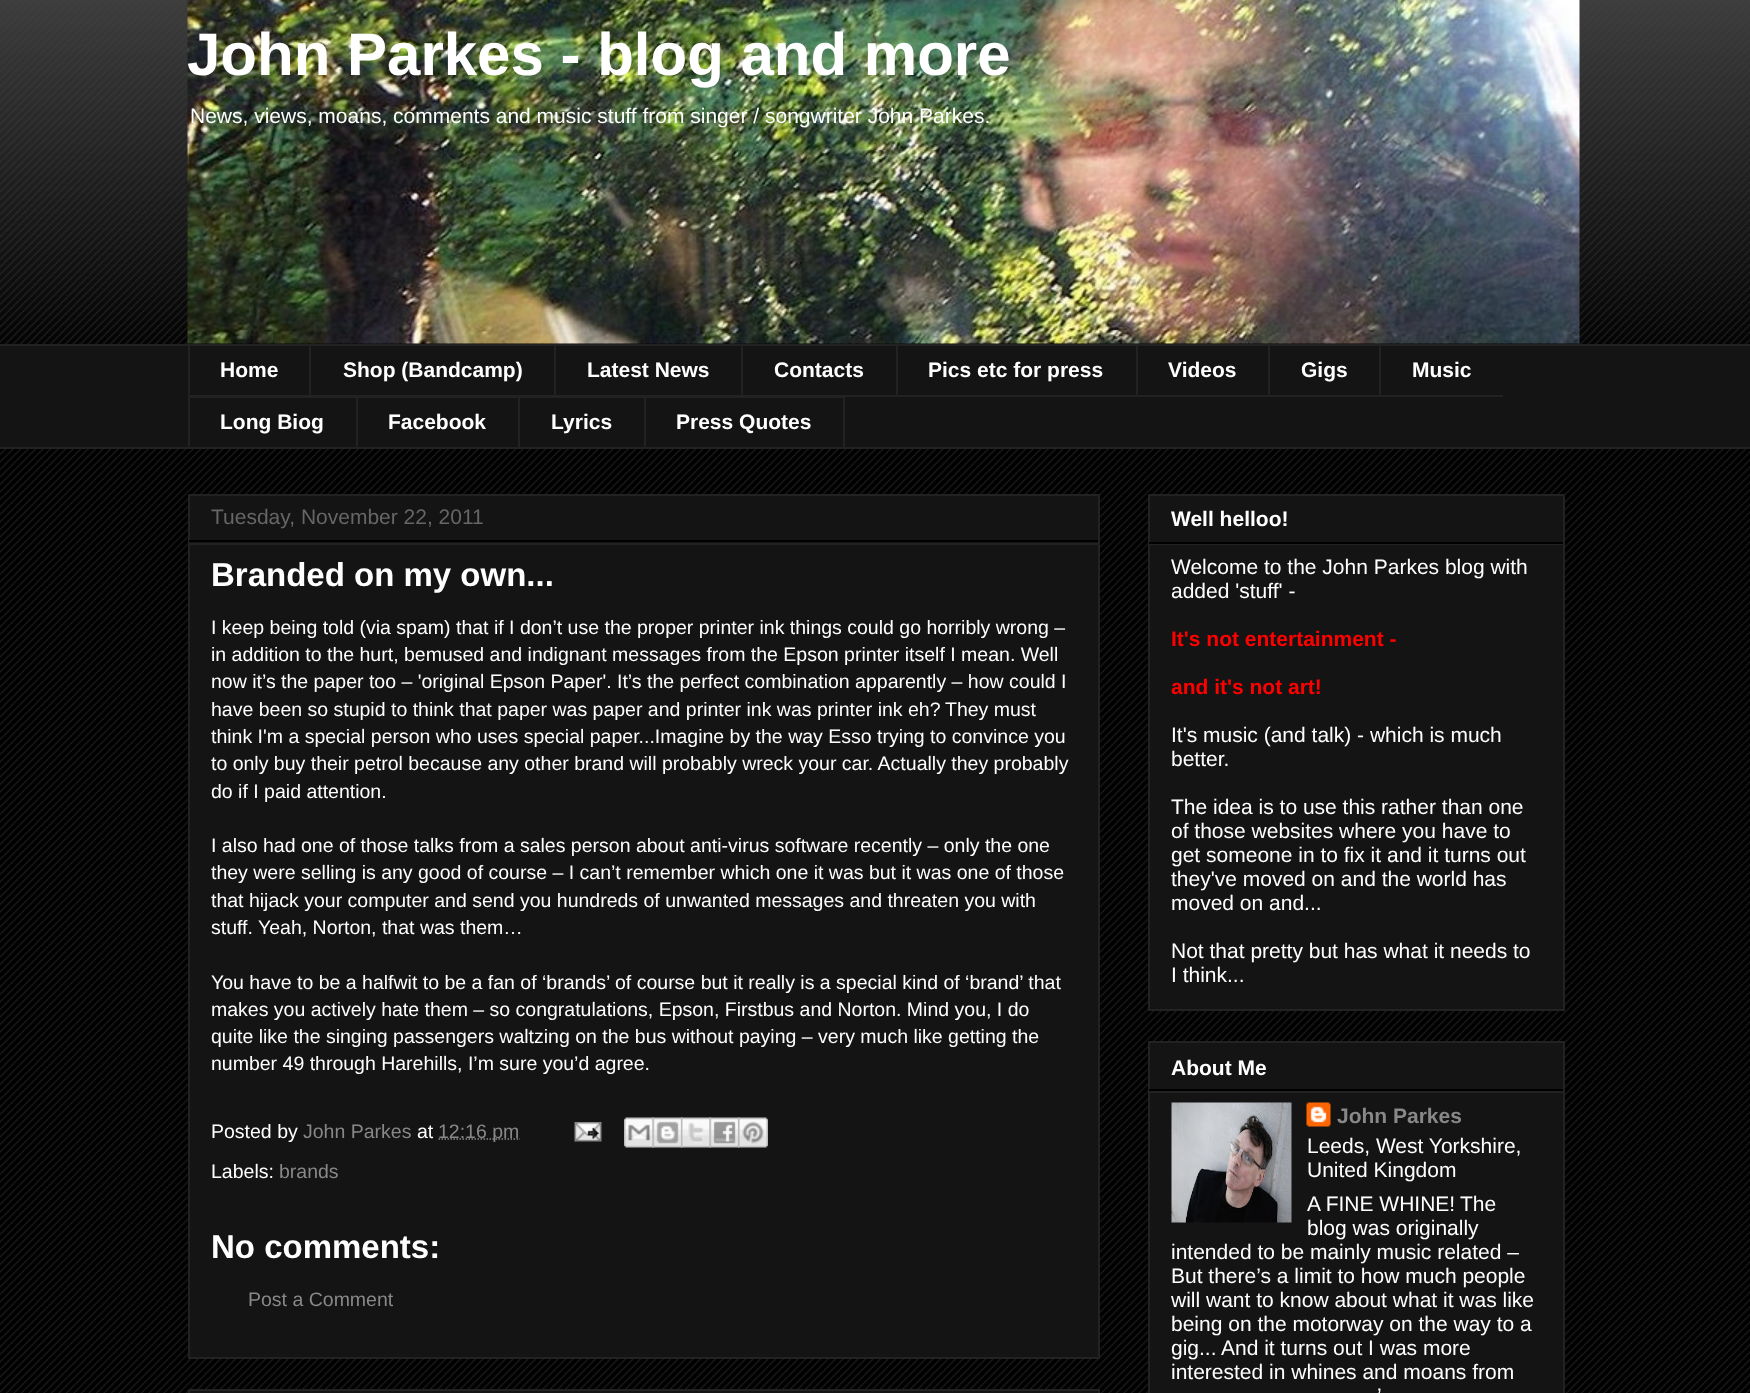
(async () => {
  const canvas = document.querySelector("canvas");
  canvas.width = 1750;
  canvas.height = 1393;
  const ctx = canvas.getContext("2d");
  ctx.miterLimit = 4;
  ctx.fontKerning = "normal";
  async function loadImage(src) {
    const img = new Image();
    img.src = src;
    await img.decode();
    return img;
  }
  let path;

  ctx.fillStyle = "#000000";
  ctx.fillRect(0, 0, 1750, 1393);
  ctx.drawImage(await loadImage("img/1.png"), 0, 0, 1750, 1393);
  ctx.drawImage(await loadImage("img/2.png"), 0, 0, 1750, 344);
  ctx.drawImage(await loadImage("img/3.png"), 187, 0, 1393, 344);
  for (const [x, y, w, h, color] of [
    [0, 346, 1750, 101, "#141414"],
    [0, 344, 1750, 2, "#222222"],
    [188, 395, 553, 1, "#222222"],
    [188, 344, 2, 52, "#222222"],
    [309, 344, 2, 52, "#222222"],
    [554, 344, 2, 52, "#222222"],
    [741, 395, 762, 2, "#222222"],
    [741, 344, 2, 52, "#222222"],
    [896, 344, 2, 52, "#222222"],
    [1136, 344, 2, 52, "#222222"],
    [1268, 344, 2, 52, "#222222"],
    [1379, 344, 2, 52, "#222222"],
    [188, 396, 456, 2, "#222222"],
    [188, 396, 2, 53, "#222222"],
    [356, 396, 2, 53, "#222222"],
    [518, 396, 2, 53, "#222222"],
  ]) {
    ctx.fillStyle = color;
    ctx.fillRect(x, y, w, h);
  }
  ctx.strokeStyle = "#222222";
  ctx.lineWidth = 2;
  ctx.strokeRect(645, 397, 199, 51);
  ctx.fillRect(0, 447, 1750, 2);
  ctx.fillStyle = "#141414";
  ctx.beginPath();
  ctx.rect(189, 495, 910, 863);
  ctx.fill();
  ctx.stroke();
  ctx.fillStyle = "#000000";
  ctx.fillRect(189, 540, 909, 2);
  ctx.fillStyle = "#222222";
  ctx.fillRect(189, 543, 909, 2);
  path = new Path2D("M438.5 1139H520");
  ctx.strokeStyle = "#888888";
  ctx.lineWidth = 1.5;
  ctx.setLineDash([1.5, 1.5]);
  ctx.stroke(path);
  ctx.drawImage(await loadImage("img/4.png"), 574, 1122, 28, 20);
  ctx.drawImage(await loadImage("img/5.png"), 624, 1117, 30, 31);
  ctx.drawImage(await loadImage("img/6.png"), 652, 1117, 31, 31);
  ctx.drawImage(await loadImage("img/7.png"), 681, 1117, 30, 31);
  ctx.drawImage(await loadImage("img/8.png"), 709, 1117, 31, 31);
  ctx.drawImage(await loadImage("img/9.png"), 738, 1117, 30, 31);
  ctx.fillStyle = "#141414";
  ctx.beginPath();
  ctx.rect(189, 1390, 910, 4);
  ctx.fill();
  ctx.strokeStyle = "#222222";
  ctx.lineWidth = 2;
  ctx.setLineDash([]);
  ctx.stroke();
  ctx.beginPath();
  ctx.rect(1149, 495, 415, 515);
  ctx.fill();
  ctx.stroke();
  ctx.fillStyle = "#000000";
  ctx.fillRect(1149, 542, 414, 2);
  ctx.fillStyle = "#222222";
  ctx.fillRect(1149, 544, 414, 1);
  ctx.fillStyle = "#141414";
  ctx.beginPath();
  ctx.rect(1149, 1042, 415, 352);
  ctx.fill();
  ctx.stroke();
  ctx.fillStyle = "#000000";
  ctx.fillRect(1149, 1089, 414, 2);
  ctx.fillStyle = "#222222";
  ctx.fillRect(1149, 1091, 414, 2);
  ctx.drawImage(await loadImage("img/10.png"), 1171, 1102, 121, 121);
  ctx.drawImage(await loadImage("img/11.png"), 1306, 1102, 25, 25);
  ctx.font = "bold 60px Liberation Sans";
  ctx.fillStyle = "#ffffff";
  ctx.fillText("John Parkes - blog and more", 187, 75);
  ctx.font = "21px Liberation Sans";
  ctx.fillText("News, views, moans, comments and music stuff from singer / songwriter John Parkes.", 190, 123);
  ctx.font = "bold 21px Liberation Sans";
  for (const [text, x, y] of [
    ["Home", 220, 377],
    ["Shop (Bandcamp)", 343, 377],
    ["Latest News", 587, 377],
    ["Contacts", 774, 377],
    ["Pics etc for press", 928, 377],
    ["Videos", 1168, 377],
    ["Gigs", 1301, 377],
    ["Music", 1412, 377],
    ["Long Biog", 220, 429],
    ["Facebook", 388, 429],
    ["Lyrics", 551, 429],
    ["Press Quotes", 676, 429],
  ]) {
    ctx.fillText(text, x, y);
  }
  ctx.font = "21px Liberation Sans";
  ctx.fillStyle = "#666666";
  ctx.fillText("Tuesday, November 22, 2011", 211, 524);
  ctx.font = "bold 33px Liberation Sans";
  ctx.fillStyle = "#ffffff";
  ctx.fillText("Branded on my own...", 211, 586);
  ctx.font = "19.5px Liberation Sans";
  for (const [text, x, y] of [
    ["I keep being told (via spam) that if I don’t use the proper printer ink things could go horribly wrong –", 211, 634],
    ["in addition to the hurt, bemused and indignant messages from the Epson printer itself I mean. Well", 211, 661],
    ["now it’s the paper too – 'original Epson Paper'. It’s the perfect combination apparently – how could I", 211, 688],
    ["have been so stupid to think that paper was paper and printer ink was printer ink eh?", 211, 716],
    ["They must", 945, 716],
    ["think I'm a special person who uses special paper...Imagine by the way Esso trying to convince you", 211, 743],
    ["to only buy their petrol because any other brand will probably wreck your car. Actually they probably", 211, 770],
    ["do if I paid attention.", 211, 798],
    ["I also had one of those talks from a sales person about anti-virus software recently – only the one", 211, 852],
    ["they were selling is any good of course – I can’t remember which one it was but it was one of those", 211, 879],
    ["that hijack your computer and send you hundreds of unwanted messages and threaten you with", 211, 907],
    ["stuff.", 211, 934],
    ["Yeah, Norton, that was them…", 258, 934],
    ["You have to be a halfwit to be a fan of ‘brands’ of course but it really is a special kind of ‘brand’ that", 211, 989],
    ["makes you actively hate them – so congratulations, Epson, Firstbus and Norton. Mind you, I do", 211, 1016],
    ["quite like the singing passengers waltzing on the bus without paying – very much like getting the", 211, 1043],
    ["number 49 through Harehills, I’m sure you’d agree.", 211, 1070],
    ["Posted by", 211, 1138],
  ]) {
    ctx.fillText(text, x, y);
  }
  ctx.fillStyle = "#888888";
  ctx.fillText("John Parkes", 303, 1138);
  ctx.fillStyle = "#ffffff";
  ctx.fillText("at", 417, 1138);
  ctx.fillStyle = "#888888";
  ctx.fillText("12:16 pm", 438, 1138);
  ctx.fillStyle = "#ffffff";
  ctx.fillText("Labels:", 211, 1178);
  ctx.fillStyle = "#888888";
  ctx.fillText("brands", 279, 1178);
  ctx.font = "bold 33px Liberation Sans";
  ctx.fillStyle = "#ffffff";
  ctx.fillText("No comments:", 211, 1258);
  ctx.font = "19.5px Liberation Sans";
  ctx.fillStyle = "#888888";
  ctx.fillText("Post a Comment", 248, 1306);
  ctx.font = "bold 21px Liberation Sans";
  ctx.fillStyle = "#ffffff";
  ctx.fillText("Well helloo!", 1171, 526);
  ctx.font = "21px Liberation Sans";
  ctx.fillText("Welcome to the John Parkes blog with", 1171, 574);
  ctx.fillText("added 'stuff' -", 1171, 598);
  ctx.font = "bold 21px Liberation Sans";
  ctx.fillStyle = "#ff0000";
  ctx.fillText("It's not entertainment -", 1171, 646);
  ctx.fillText("and it's not art!", 1171, 694);
  ctx.font = "21px Liberation Sans";
  ctx.fillStyle = "#ffffff";
  for (const [text, x, y] of [
    ["It's music (and talk) - which is much", 1171, 742],
    ["better.", 1171, 766],
    ["The idea is to use this rather than one", 1171, 814],
    ["of those websites where you have to", 1171, 838],
    ["get someone in to fix it and it turns out", 1171, 862],
    ["they've moved on and the world has", 1171, 886],
    ["moved on and...", 1171, 910],
    ["Not that pretty but has what it needs to", 1171, 958],
    ["I think...", 1171, 982],
  ]) {
    ctx.fillText(text, x, y);
  }
  ctx.font = "bold 21px Liberation Sans";
  ctx.fillText("About Me", 1171, 1075);
  ctx.fillStyle = "#888888";
  ctx.fillText("John Parkes", 1337, 1123);
  ctx.font = "21px Liberation Sans";
  ctx.fillStyle = "#ffffff";
  for (const [text, x, y] of [
    ["Leeds, West Yorkshire,", 1307, 1153],
    ["United Kingdom", 1307, 1177],
    ["A FINE WHINE!", 1307, 1211],
    ["The", 1460, 1211],
    ["blog was originally", 1307, 1235],
    ["intended to be mainly music related –", 1171, 1259],
    ["But there’s a limit to how much people", 1171, 1283],
    ["will want to know about what it was like", 1171, 1307],
    ["being on the motorway on the way to a", 1171, 1331],
    ["gig...", 1171, 1355],
    ["And it turns out I was more", 1221, 1355],
    ["interested in whines and moans from", 1171, 1379],
    ["’", 1377, 1403],
  ]) {
    ctx.fillText(text, x, y);
  }
})();
